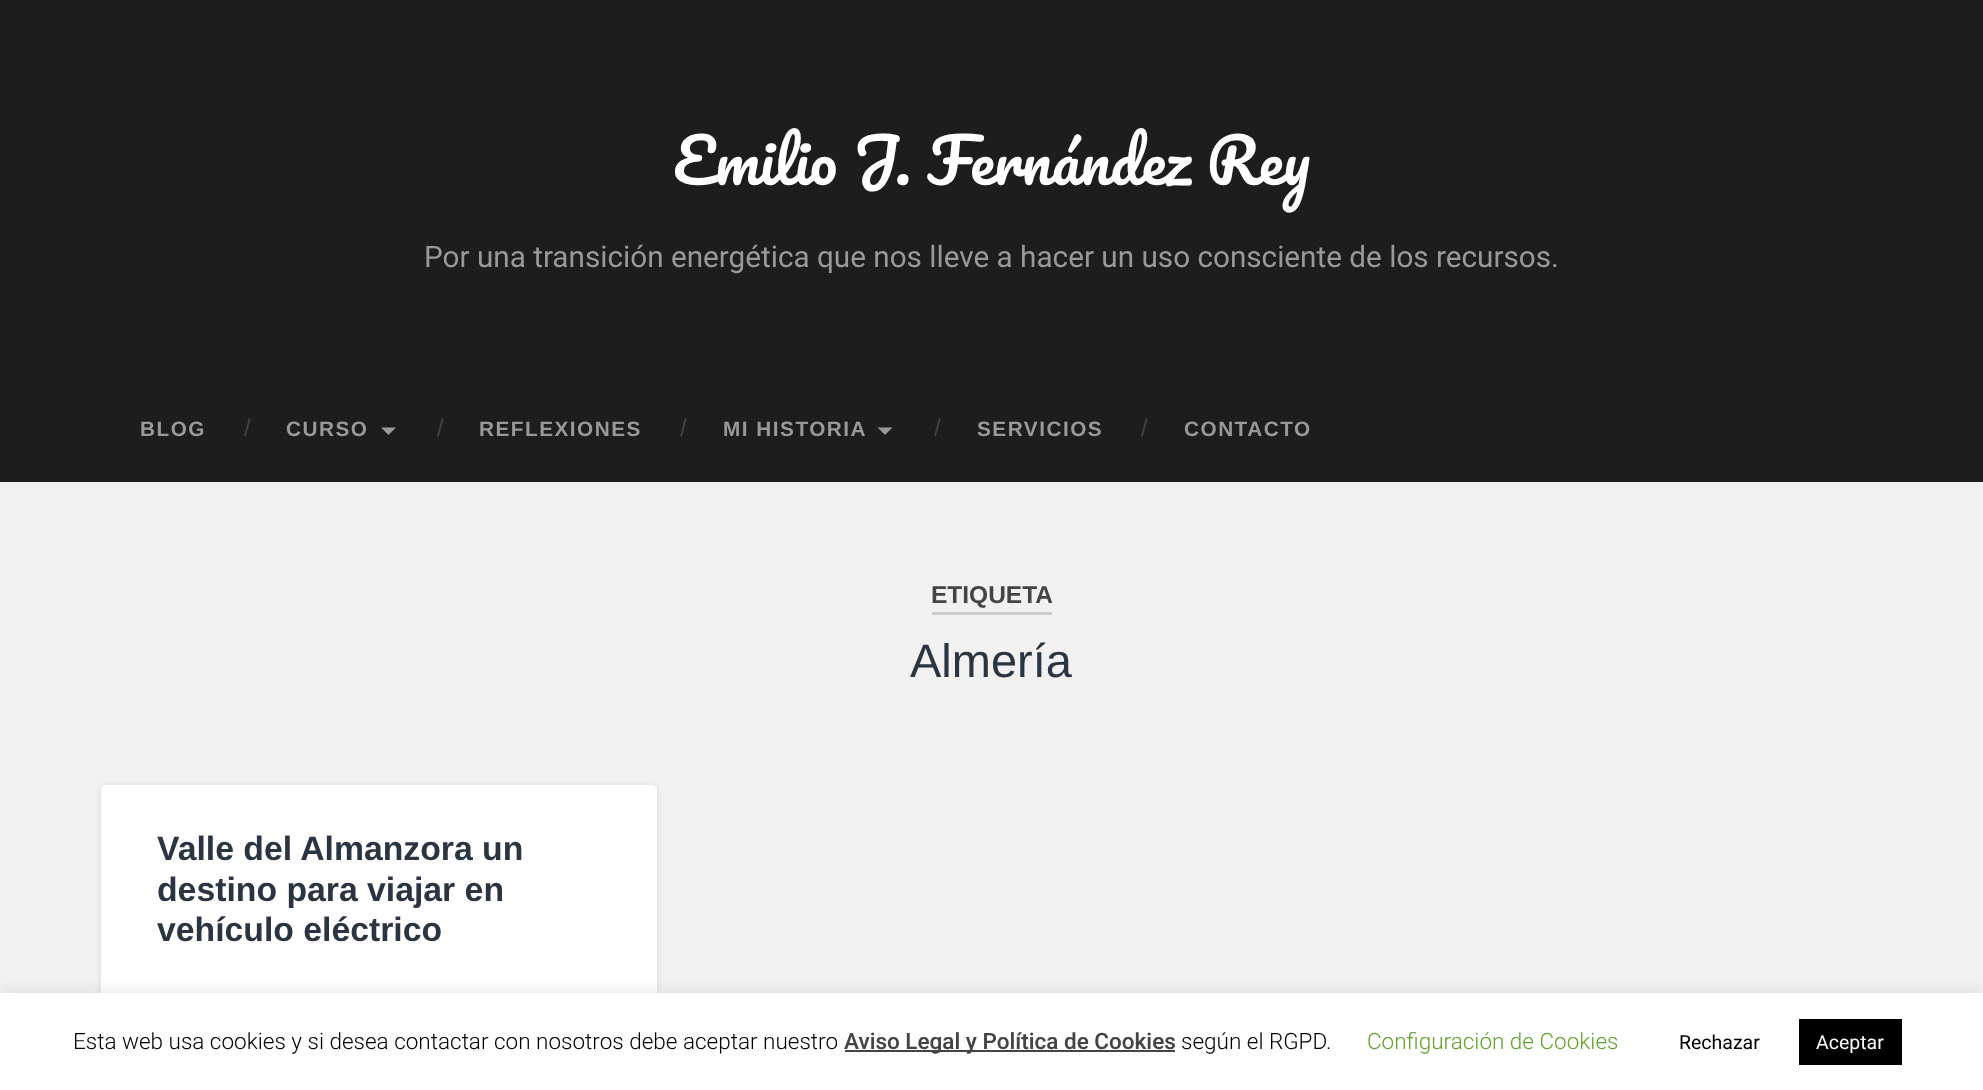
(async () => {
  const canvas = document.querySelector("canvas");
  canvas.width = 1983;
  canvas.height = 1090;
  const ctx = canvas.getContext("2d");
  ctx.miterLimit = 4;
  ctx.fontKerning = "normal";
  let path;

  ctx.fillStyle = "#f1f1f1";
  ctx.fillRect(0, 0, 1983, 1090);
  ctx.fillStyle = "#1d1d1d";
  ctx.fillRect(0, 0, 1983, 482);
  ctx.fillStyle = "#999999";
  path = new Path2D("M381 427.5H396L388.5 435Z");
  ctx.fill(path);
  path = new Path2D("M877.5 427.5H892.5L885 435Z");
  ctx.fill(path);
  ctx.fillStyle = "#cccccc";
  ctx.fillRect(932, 612, 120, 3);
  ctx.fillStyle = "rgba(0, 0, 0, 0.1)";
  ctx.filter = "blur(3px)";
  ctx.beginPath();
  ctx.roundRect(101, 786, 556, 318, 5);
  ctx.fill();
  ctx.filter = "none";
  ctx.fillStyle = "#ffffff";
  ctx.beginPath();
  ctx.roundRect(101, 785, 556, 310, 5);
  ctx.fill();
  ctx.fillStyle = "rgba(172, 171, 171, 0.3)";
  ctx.filter = "blur(7.5px)";
  ctx.beginPath();
  ctx.rect(0, 992, 1983, 97);
  ctx.fill();
  ctx.filter = "none";
  for (const [x, y, w, h, color] of [
    [0, 993, 1983, 97, "#ffffff"],
    [845, 1050, 330, 2, "#444444"],
    [1799, 1019, 103, 46, "#000000"],
  ]) {
    ctx.fillStyle = color;
    ctx.fillRect(x, y, w, h);
  }
  ctx.font = "60.75px Pacifico";
  ctx.fillStyle = "#ffffff";
  ctx.fillText("Emilio J. Fernández Rey", 673, 185);
  ctx.font = "29.7px Roboto";
  ctx.fillStyle = "#999999";
  ctx.fillText("Por una transición energética que nos lleve a hacer un uso consciente de los recursos.", 424, 267);
  ctx.letterSpacing = "1.5px";
  ctx.font = "bold 20.75px Liberation Sans";
  ctx.fillText("BLOG", 140, 436);
  ctx.letterSpacing = "0px";
  ctx.font = "24px Liberation Sans";
  ctx.fillStyle = "#444444";
  ctx.fillText("/", 244, 436);
  ctx.letterSpacing = "1.5px";
  ctx.font = "bold 20.75px Liberation Sans";
  ctx.fillStyle = "#999999";
  ctx.fillText("CURSO", 286, 436);
  ctx.letterSpacing = "0px";
  ctx.font = "24px Liberation Sans";
  ctx.fillStyle = "#444444";
  ctx.fillText("/", 437, 436);
  ctx.letterSpacing = "1.5px";
  ctx.font = "bold 20.75px Liberation Sans";
  ctx.fillStyle = "#999999";
  ctx.fillText("REFLEXIONES", 479, 436);
  ctx.letterSpacing = "0px";
  ctx.font = "24px Liberation Sans";
  ctx.fillStyle = "#444444";
  ctx.fillText("/", 680, 436);
  ctx.letterSpacing = "1.5px";
  ctx.font = "bold 20.75px Liberation Sans";
  ctx.fillStyle = "#999999";
  ctx.fillText("MI HISTORIA", 723, 436);
  ctx.letterSpacing = "0px";
  ctx.font = "24px Liberation Sans";
  ctx.fillStyle = "#444444";
  ctx.fillText("/", 934, 436);
  ctx.letterSpacing = "1.5px";
  ctx.font = "bold 20.75px Liberation Sans";
  ctx.fillStyle = "#999999";
  ctx.fillText("SERVICIOS", 977, 436);
  ctx.letterSpacing = "0px";
  ctx.font = "24px Liberation Sans";
  ctx.fillStyle = "#444444";
  ctx.fillText("/", 1141, 436);
  ctx.letterSpacing = "1.5px";
  ctx.font = "bold 20.75px Liberation Sans";
  ctx.fillStyle = "#999999";
  ctx.fillText("CONTACTO", 1184, 436);
  ctx.letterSpacing = "0px";
  ctx.font = "bold 24.5px Liberation Sans";
  ctx.fillStyle = "#444444";
  ctx.fillText("ETIQUETA", 931, 603);
  ctx.font = "47px Liberation Sans";
  ctx.fillStyle = "#2b3542";
  ctx.fillText("Almería", 910, 677);
  ctx.font = "bold 33.75px Liberation Sans";
  for (const [text, x, y] of [
    ["Valle del Almanzora un", 157, 860],
    ["destino para viajar en", 157, 901],
    ["vehículo eléctrico", 157, 941],
  ]) {
    ctx.fillText(text, x, y);
  }
  ctx.font = "300 22.5px Roboto";
  ctx.fillStyle = "#000000";
  ctx.fillText("Esta web usa cookies y si desea contactar con nosotros debe aceptar nuestro", 73, 1049);
  ctx.font = "500 22.5px Roboto";
  ctx.fillStyle = "#444444";
  ctx.fillText("Aviso Legal y Política de Cookies", 844, 1049);
  ctx.font = "300 22.5px Roboto";
  ctx.fillStyle = "#000000";
  ctx.fillText("según el RGPD.", 1181, 1049);
  ctx.fillStyle = "#62a329";
  ctx.fillText("Configuración de Cookies", 1367, 1049);
  ctx.font = "19.5px Roboto";
  ctx.fillStyle = "#000000";
  ctx.fillText("Rechazar", 1679, 1049);
  ctx.fillStyle = "#ffffff";
  ctx.fillText("Aceptar", 1816, 1049);
})();
